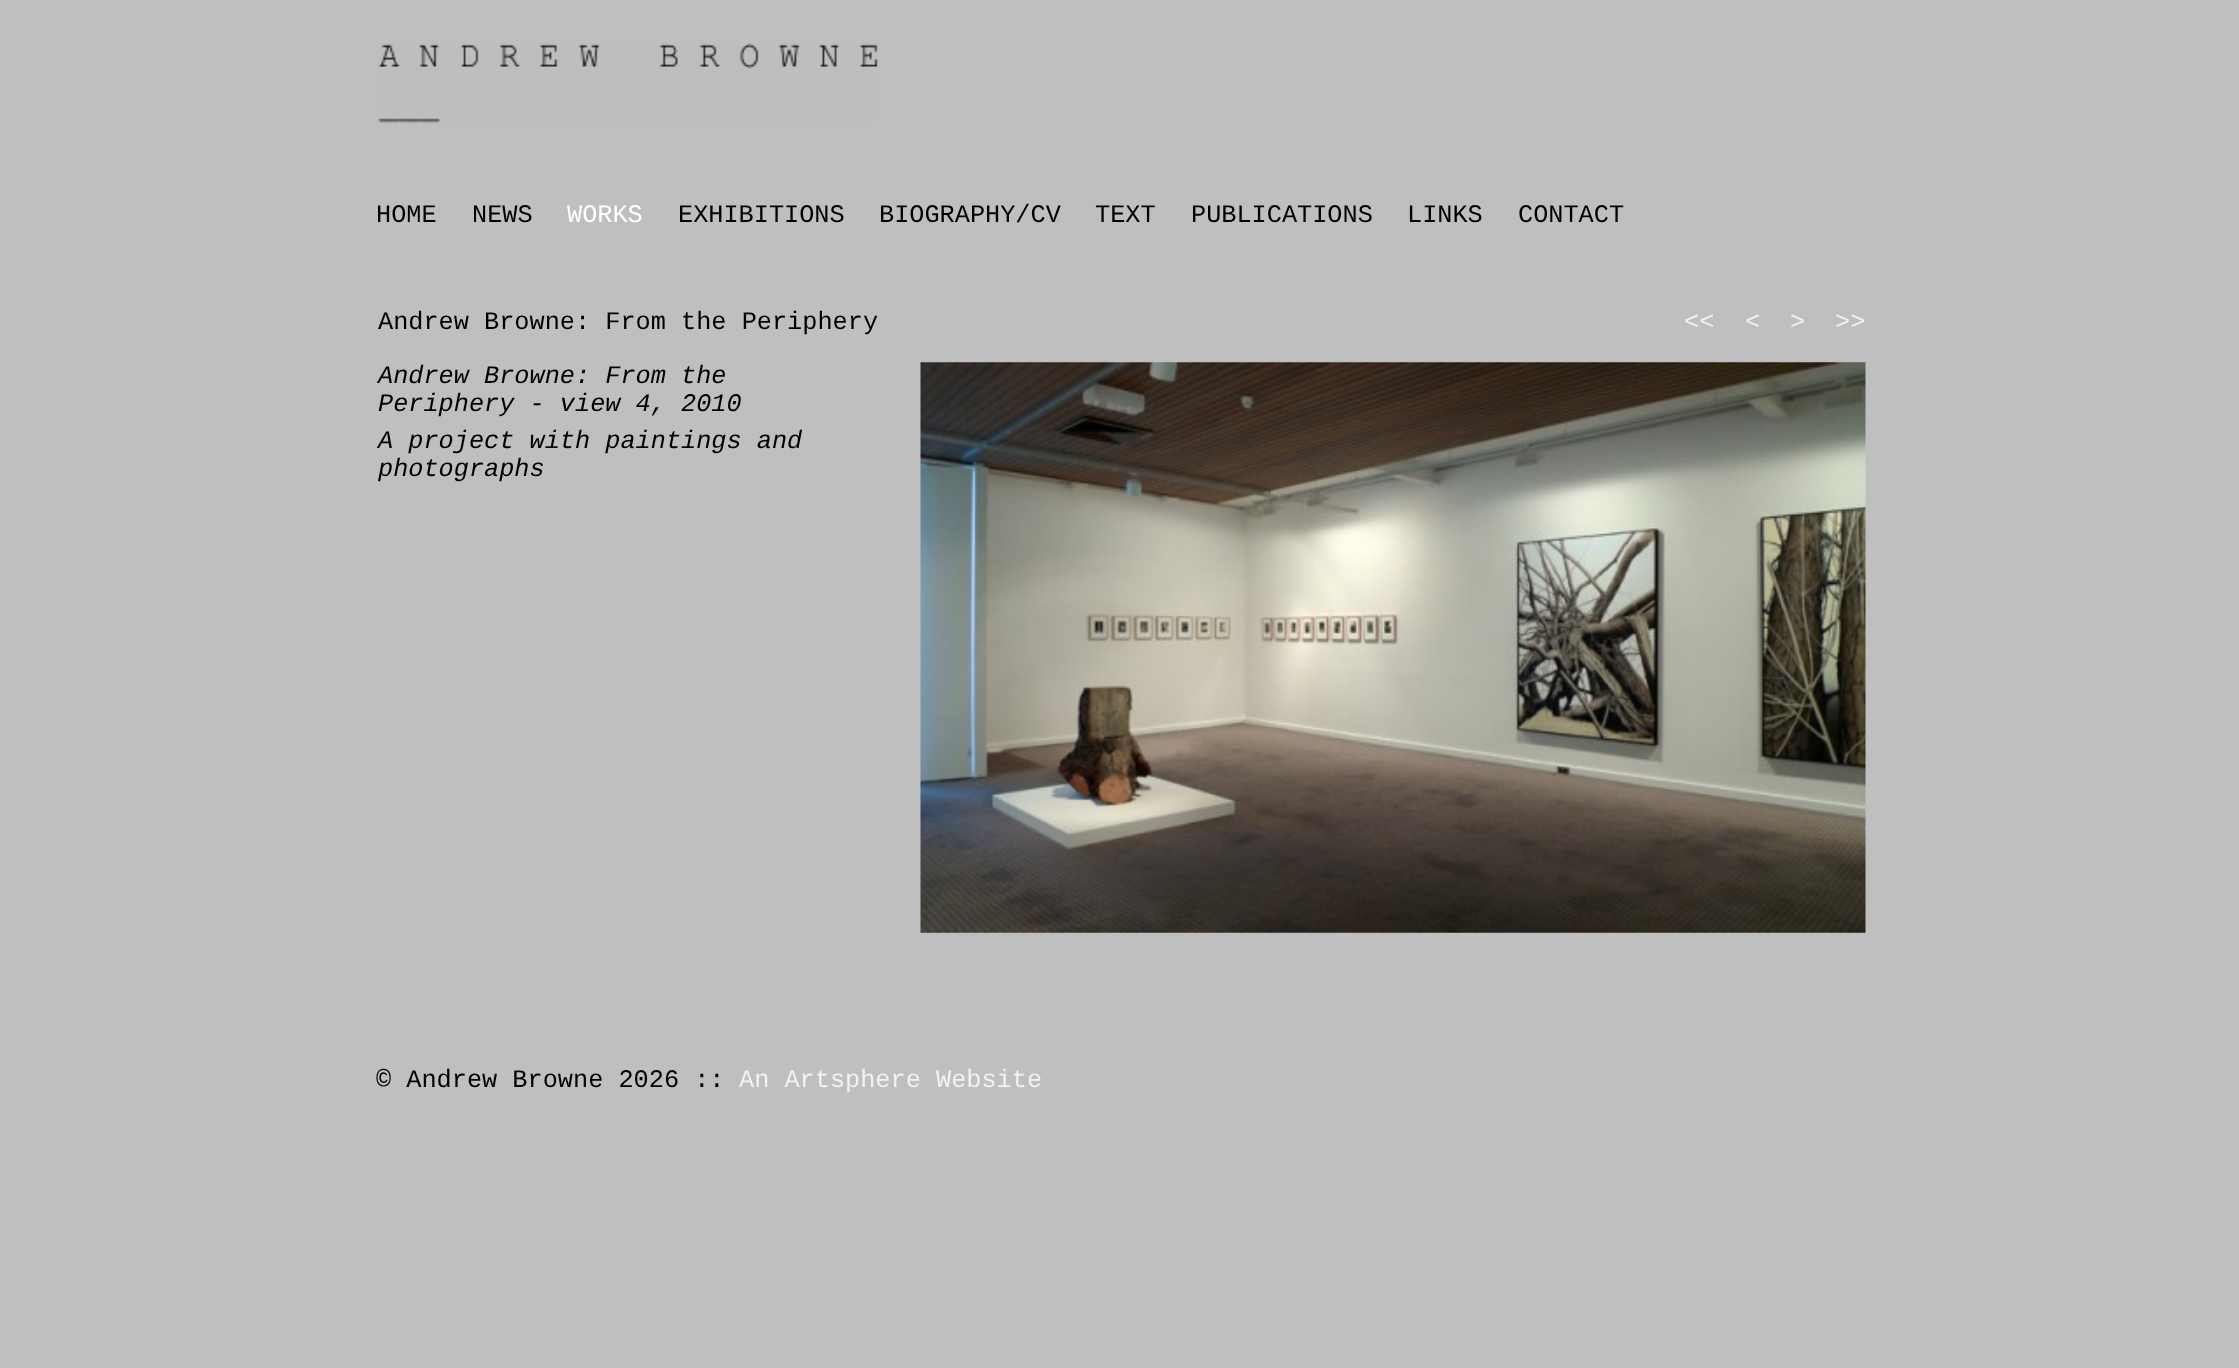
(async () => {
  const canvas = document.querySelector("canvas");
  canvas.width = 2239;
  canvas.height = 1368;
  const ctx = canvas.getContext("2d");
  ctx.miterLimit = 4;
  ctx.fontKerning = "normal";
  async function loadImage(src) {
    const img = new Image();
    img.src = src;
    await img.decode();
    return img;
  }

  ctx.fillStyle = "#bfbfbf";
  ctx.fillRect(0, 0, 2239, 1368);
  ctx.drawImage(await loadImage("img/1.png"), 377, 43, 501, 80);
  ctx.drawImage(await loadImage("img/2.png"), 920, 362, 946, 571);
  ctx.font = "25.25px Liberation Mono";
  ctx.fillStyle = "#000000";
  ctx.fillText("HOME", 376, 222);
  ctx.fillText("NEWS", 472, 222);
  ctx.fillStyle = "#ffffff";
  ctx.fillText("WORKS", 567, 222);
  ctx.fillStyle = "#000000";
  for (const [text, x, y] of [
    ["EXHIBITIONS", 678, 222],
    ["BIOGRAPHY/CV", 879, 222],
    ["TEXT", 1095, 222],
    ["PUBLICATIONS", 1191, 222],
    ["LINKS", 1407, 222],
    ["CONTACT", 1518, 222],
    ["Andrew Browne: From the Periphery", 378, 329],
  ]) {
    ctx.fillText(text, x, y);
  }
  ctx.fillStyle = "#f2f2f2";
  for (const [text, x, y] of [
    ["<<", 1684, 329],
    ["<", 1745, 329],
    [">", 1790, 329],
    [">>", 1835, 329],
  ]) {
    ctx.fillText(text, x, y);
  }
  ctx.font = "italic 25.25px Liberation Mono";
  ctx.fillStyle = "#000000";
  for (const [text, x, y] of [
    ["Andrew Browne: From the", 378, 383],
    ["Periphery - view 4, 2010", 378, 411],
    ["A project with paintings and", 378, 448],
    ["photographs", 378, 476],
  ]) {
    ctx.fillText(text, x, y);
  }
  ctx.font = "25.25px Liberation Mono";
  ctx.fillText("© Andrew Browne 2026 ::", 376, 1087);
  ctx.fillStyle = "#f2f2f2";
  ctx.fillText("An Artsphere Website", 739, 1087);
})();
